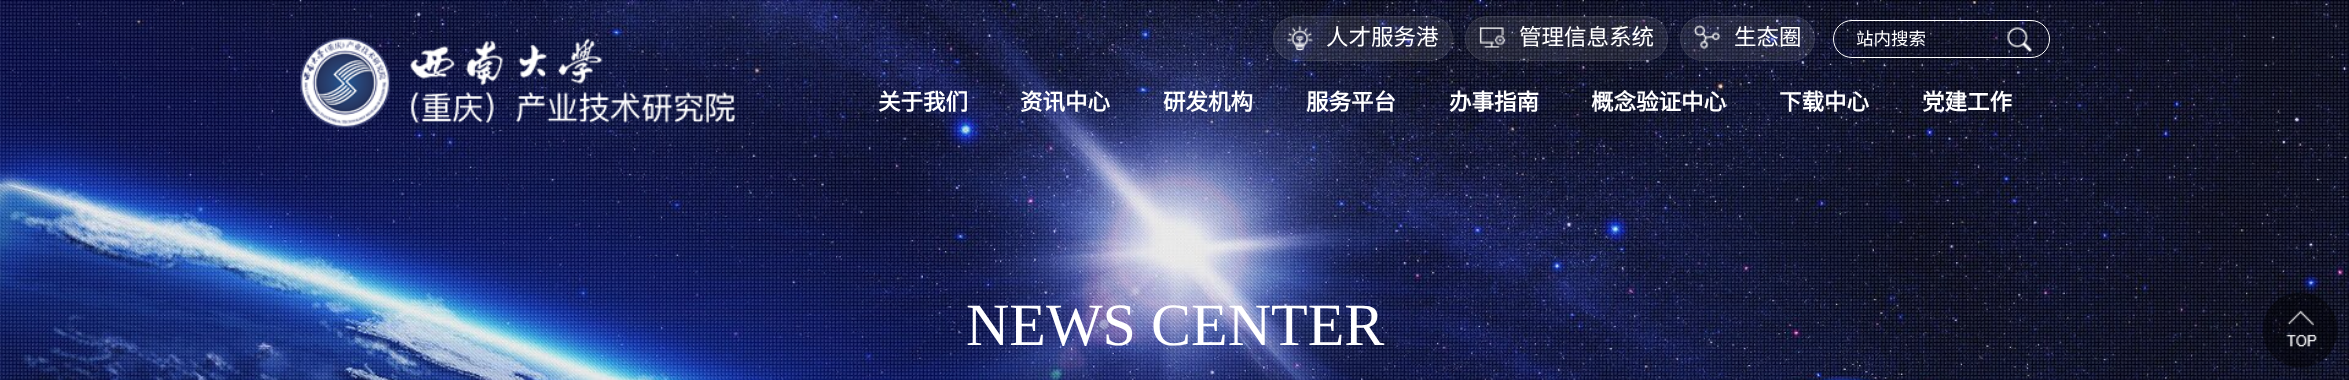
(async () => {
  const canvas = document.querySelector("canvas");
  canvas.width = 2349;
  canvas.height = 380;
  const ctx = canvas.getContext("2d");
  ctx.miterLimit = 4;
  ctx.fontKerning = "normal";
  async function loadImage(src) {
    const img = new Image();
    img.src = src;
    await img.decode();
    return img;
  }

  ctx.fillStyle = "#ffffff";
  ctx.fillRect(0, 0, 2349, 380);
  ctx.drawImage(await loadImage("img/6.png"), 0, 0, 2349, 380);
  ctx.drawImage(await loadImage("img/1.png"), 300, 37, 435, 91);
  ctx.fillStyle = "rgba(225, 225, 225, 0.1)";
  ctx.beginPath();
  ctx.roundRect(1273, 16, 180, 45, 22.5);
  ctx.fill();
  ctx.beginPath();
  ctx.roundRect(1273.5, 16.5, 179, 44, 22);
  ctx.strokeStyle = "rgba(225, 225, 225, 0.1)";
  ctx.stroke();
  ctx.drawImage(await loadImage("img/2.png"), 1287, 26, 26, 25);
  ctx.beginPath();
  ctx.roundRect(1465, 16, 203, 45, 22.5);
  ctx.fill();
  ctx.beginPath();
  ctx.roundRect(1465.5, 16.5, 202, 44, 22);
  ctx.stroke();
  ctx.drawImage(await loadImage("img/3.png"), 1479, 27, 27, 21);
  ctx.beginPath();
  ctx.roundRect(1680, 16, 135, 45, 22.5);
  ctx.fill();
  ctx.beginPath();
  ctx.roundRect(1680.5, 16.5, 134, 44, 22);
  ctx.stroke();
  ctx.drawImage(await loadImage("img/4.png"), 1693, 25, 28, 24);
  ctx.beginPath();
  ctx.roundRect(1833.5, 20.5, 216, 37, 18.5);
  ctx.strokeStyle = "#ffffff";
  ctx.stroke();
  ctx.drawImage(await loadImage("img/5.png"), 2007, 27, 25, 25);
  ctx.drawImage(await loadImage("img/7.png"), 2262, 292, 76, 76);
  ctx.font = "22.5px Noto Sans CJK SC";
  ctx.fillStyle = "#ffffff";
  for (const [text, x, y] of [
    ["人才服务港", 1326, 45],
    ["管理信息系统", 1519, 45],
    ["生态圈", 1734, 45],
  ]) {
    ctx.fillText(text, x, y);
  }
  ctx.font = "17.5px Noto Sans CJK SC";
  ctx.fillText("站内搜索", 1856, 45);
  ctx.font = "bold 22.5px Noto Sans CJK SC";
  for (const [text, x, y] of [
    ["关于我们", 878, 110],
    ["资讯中心", 1020, 110],
    ["研发机构", 1163, 110],
    ["服务平台", 1306, 110],
    ["办事指南", 1449, 110],
    ["概念验证中心", 1591, 110],
    ["下载中心", 1779, 110],
    ["党建工作", 1922, 110],
  ]) {
    ctx.fillText(text, x, y);
  }
  ctx.font = "60px Liberation Serif";
  ctx.fillText("NEWS CENTER", 966, 345);
})();
